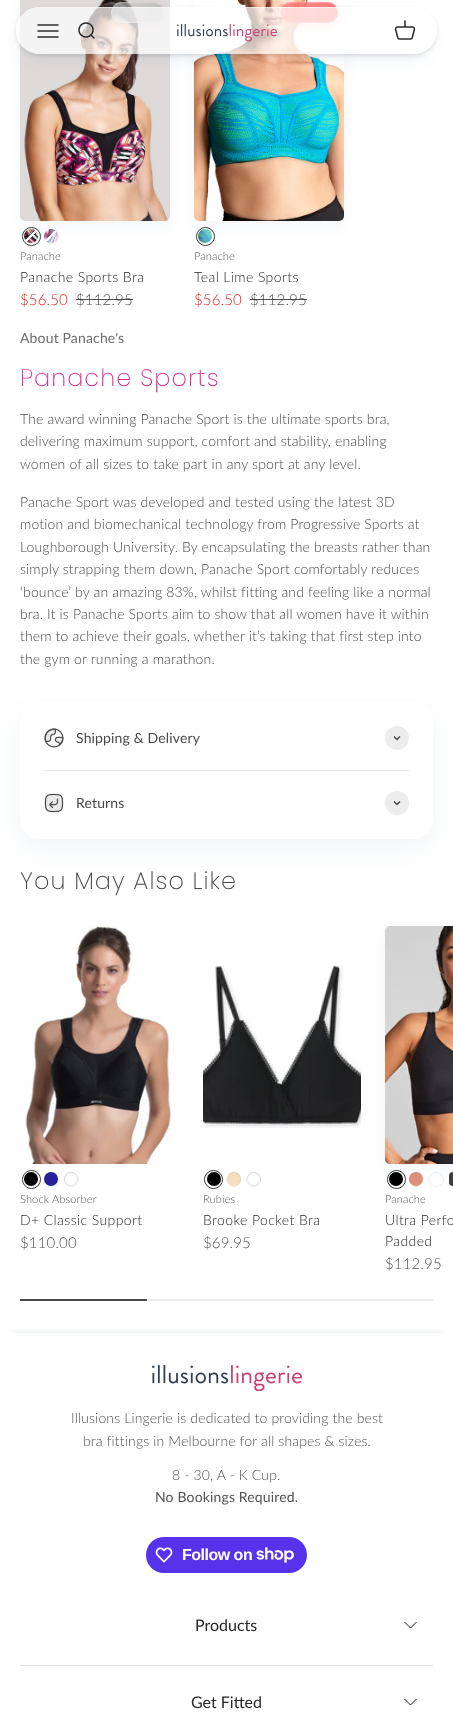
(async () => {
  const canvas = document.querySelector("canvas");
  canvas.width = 453;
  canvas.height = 1732;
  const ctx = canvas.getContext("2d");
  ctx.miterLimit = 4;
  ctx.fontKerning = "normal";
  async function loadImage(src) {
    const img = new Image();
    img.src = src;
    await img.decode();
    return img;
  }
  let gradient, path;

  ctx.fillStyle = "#ffffff";
  ctx.fillRect(0, 0, 453, 1732);
  ctx.fillStyle = "rgba(14, 63, 120, 0.05)";
  ctx.filter = "blur(7px)";
  ctx.beginPath();
  ctx.roundRect(20, 1, 150, 225, 5);
  ctx.fill();
  ctx.filter = "none";
  ctx.drawImage(await loadImage("img/5.png"), 20, 0, 150, 221);
  ctx.save();
  path = new Path2D("M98 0H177V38H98ZM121.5 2H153.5C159.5 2 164 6.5 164 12.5C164 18.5 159.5 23 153.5 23H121.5C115.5 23 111 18.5 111 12.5C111 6.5 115.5 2 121.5 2Z");
  ctx.clip(path, "evenodd");
  ctx.fillStyle = "rgba(0, 0, 0, 0.1)";
  ctx.filter = "blur(4px)";
  ctx.beginPath();
  ctx.roundRect(111, 4, 53, 21, 10.5);
  ctx.fill();
  ctx.filter = "none";
  ctx.restore();
  gradient = ctx.createLinearGradient(164, 13, 111, 12);
  gradient.addColorStop(0, "rgba(176, 176, 176, 0.67)");
  gradient.addColorStop(1, "rgba(208, 208, 208, 0.58)");
  ctx.fillStyle = gradient;
  ctx.beginPath();
  ctx.roundRect(111, 2, 53, 21, 10.5);
  ctx.fill();
  ctx.beginPath();
  ctx.roundRect(111.5, 2.5, 52, 20, 10);
  ctx.strokeStyle = "rgba(255, 255, 255, 0.25)";
  ctx.stroke();
  ctx.fillStyle = "rgba(14, 63, 120, 0.05)";
  ctx.filter = "blur(7px)";
  ctx.beginPath();
  ctx.roundRect(194, 1, 150, 225, 5);
  ctx.fill();
  ctx.filter = "none";
  ctx.drawImage(await loadImage("img/8.png"), 194, 0, 150, 221);
  ctx.save();
  path = new Path2D("M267 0H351V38H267ZM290.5 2H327.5C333.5 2 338 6.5 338 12.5C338 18.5 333.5 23 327.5 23H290.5C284.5 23 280 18.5 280 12.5C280 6.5 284.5 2 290.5 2Z");
  ctx.clip(path, "evenodd");
  ctx.fillStyle = "rgba(255, 100, 100, 0.3)";
  ctx.filter = "blur(4px)";
  ctx.beginPath();
  ctx.roundRect(280, 4, 58, 21, 10.5);
  ctx.fill();
  ctx.filter = "none";
  ctx.restore();
  gradient = ctx.createLinearGradient(338, 13, 280, 12);
  gradient.addColorStop(0, "rgba(255, 28, 28, 0.6)");
  gradient.addColorStop(1, "rgba(255, 114, 114, 0.7)");
  ctx.fillStyle = gradient;
  ctx.beginPath();
  ctx.roundRect(280, 2, 58, 21, 10.5);
  ctx.fill();
  ctx.beginPath();
  ctx.roundRect(280.5, 2.5, 57, 20, 10);
  ctx.stroke();
  ctx.save();
  path = new Path2D("M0 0H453V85H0ZM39.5 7H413.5C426.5 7 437 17.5 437 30.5C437 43.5 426.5 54 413.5 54H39.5C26.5 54 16 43.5 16 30.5C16 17.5 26.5 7 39.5 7Z");
  ctx.clip(path, "evenodd");
  ctx.fillStyle = "rgba(14, 63, 126, 0.12)";
  ctx.filter = "blur(10px)";
  ctx.beginPath();
  ctx.roundRect(26, 27, 401, 27, 13.5);
  ctx.fill();
  ctx.filter = "none";
  ctx.restore();
  ctx.save();
  path = new Path2D("M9 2H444V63H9ZM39.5 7H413.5C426.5 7 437 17.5 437 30.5C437 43.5 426.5 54 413.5 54H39.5C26.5 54 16 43.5 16 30.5C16 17.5 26.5 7 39.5 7Z");
  ctx.clip(path, "evenodd");
  ctx.fillStyle = "rgba(0, 0, 0, 0.1)";
  ctx.filter = "blur(2px)";
  ctx.beginPath();
  ctx.roundRect(16, 9, 421, 47, 23.5);
  ctx.fill();
  ctx.filter = "none";
  ctx.restore();
  ctx.fillStyle = "rgba(255, 255, 255, 0.7)";
  ctx.beginPath();
  ctx.roundRect(16, 7, 421, 47, 23.5);
  ctx.fill();
  ctx.fillStyle = "rgba(255, 255, 255, 0.45)";
  path = new Path2D("M40 7H414C426 7 437 18 437 30C437 43 426 54 414 54H40C27 54 16 43 16 30C16 18 27 7 40 7ZM40 8H414C426 8 436 18 436 30C436 43 426 54 414 54H40C27 54 17 43 17 30C17 18 27 8 40 8Z");
  ctx.fill(path, "evenodd");
  ctx.drawImage(await loadImage("img/1.png"), 37, 24, 22, 14);
  ctx.drawImage(await loadImage("img/2.png"), 78, 22, 17, 17);
  ctx.drawImage(await loadImage("img/3.png"), 177, 24, 100, 18);
  ctx.drawImage(await loadImage("img/4.png"), 394, 20, 22, 20);
  ctx.drawImage(await loadImage("img/6.png"), 24, 229, 14, 14);
  ctx.beginPath();
  ctx.arc(31.5, 236.5, 9.05, 0, Math.PI * 2);
  ctx.strokeStyle = "#272727";
  ctx.lineWidth = 0.9;
  ctx.stroke();
  ctx.drawImage(await loadImage("img/7.png"), 44, 229, 14, 14);
  ctx.beginPath();
  ctx.arc(51.5, 236.5, 7.1, 0, Math.PI * 2);
  ctx.strokeStyle = "rgba(39, 39, 39, 0.1)";
  ctx.lineWidth = 0.8;
  ctx.stroke();
  ctx.drawImage(await loadImage("img/9.png"), 198, 229, 14, 14);
  ctx.beginPath();
  ctx.arc(205.5, 236.5, 9.05, 0, Math.PI * 2);
  ctx.strokeStyle = "#272727";
  ctx.lineWidth = 0.9;
  ctx.stroke();
  ctx.fillStyle = "rgba(14, 63, 126, 0.05)";
  ctx.filter = "blur(12.5px)";
  ctx.beginPath();
  ctx.roundRect(20, 712, 413, 137, 20);
  ctx.fill();
  ctx.filter = "none";
  ctx.fillStyle = "#ffffff";
  ctx.beginPath();
  ctx.roundRect(20, 702, 413, 137, 20);
  ctx.fill();
  ctx.fillStyle = "#e9e9e9";
  ctx.fillRect(44, 770, 365, 1);
  ctx.drawImage(await loadImage("img/10.png"), 44, 728, 20, 20);
  ctx.fillStyle = "#ededed";
  ctx.beginPath();
  ctx.arc(397, 738, 12, 0, Math.PI * 2);
  ctx.fill();
  path = new Path2D("M394 736.5L397 739.5L400 736.5");
  ctx.strokeStyle = "#494949";
  ctx.lineWidth = 1.5;
  ctx.stroke(path);
  ctx.drawImage(await loadImage("img/11.png"), 44, 793, 20, 20);
  ctx.beginPath();
  ctx.arc(397, 803, 12, 0, Math.PI * 2);
  ctx.fill();
  path = new Path2D("M394 801.5L397 804.5L400 801.5");
  ctx.stroke(path);
  ctx.drawImage(await loadImage("img/12.png"), 23, 926, 149, 238);
  ctx.fillStyle = "#000000";
  ctx.beginPath();
  ctx.arc(31, 1179, 7, 0, Math.PI * 2);
  ctx.fill();
  ctx.beginPath();
  ctx.arc(31.5, 1179.5, 9.05, 0, Math.PI * 2);
  ctx.strokeStyle = "#272727";
  ctx.lineWidth = 0.9;
  ctx.stroke();
  ctx.fillStyle = "#282099";
  ctx.beginPath();
  ctx.arc(51, 1179, 7, 0, Math.PI * 2);
  ctx.fill();
  ctx.beginPath();
  ctx.arc(51.5, 1179.5, 7.1, 0, Math.PI * 2);
  ctx.strokeStyle = "rgba(39, 39, 39, 0.1)";
  ctx.lineWidth = 0.8;
  ctx.stroke();
  ctx.beginPath();
  ctx.arc(71, 1179, 6.5, 0, Math.PI * 2);
  ctx.strokeStyle = "rgba(39, 39, 39, 0.12)";
  ctx.lineWidth = 1;
  ctx.stroke();
  ctx.beginPath();
  ctx.arc(71.5, 1179.5, 7.1, 0, Math.PI * 2);
  ctx.strokeStyle = "rgba(39, 39, 39, 0.1)";
  ctx.lineWidth = 0.8;
  ctx.stroke();
  ctx.drawImage(await loadImage("img/13.png"), 203, 964, 158, 164);
  ctx.fillStyle = "#000000";
  ctx.beginPath();
  ctx.arc(214, 1179, 7, 0, Math.PI * 2);
  ctx.fill();
  ctx.beginPath();
  ctx.arc(213.5, 1179.5, 9.05, 0, Math.PI * 2);
  ctx.strokeStyle = "#272727";
  ctx.lineWidth = 0.9;
  ctx.stroke();
  ctx.fillStyle = "#f3debe";
  ctx.beginPath();
  ctx.arc(234, 1179, 7, 0, Math.PI * 2);
  ctx.fill();
  ctx.beginPath();
  ctx.arc(233.5, 1179.5, 7.1, 0, Math.PI * 2);
  ctx.strokeStyle = "rgba(39, 39, 39, 0.1)";
  ctx.lineWidth = 0.8;
  ctx.stroke();
  ctx.beginPath();
  ctx.arc(254, 1179, 6.5, 0, Math.PI * 2);
  ctx.strokeStyle = "rgba(39, 39, 39, 0.12)";
  ctx.lineWidth = 1;
  ctx.stroke();
  ctx.beginPath();
  ctx.arc(253.5, 1179.5, 7.1, 0, Math.PI * 2);
  ctx.strokeStyle = "rgba(39, 39, 39, 0.1)";
  ctx.lineWidth = 0.8;
  ctx.stroke();
  ctx.fillStyle = "rgba(14, 63, 120, 0.05)";
  ctx.filter = "blur(7px)";
  ctx.beginPath();
  ctx.roundRect(385, 931, 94, 238, 5);
  ctx.fill();
  ctx.filter = "none";
  ctx.drawImage(await loadImage("img/14.png"), 385, 926, 68, 238);
  ctx.fillStyle = "#000000";
  ctx.beginPath();
  ctx.arc(396, 1179, 7, 0, Math.PI * 2);
  ctx.fill();
  ctx.beginPath();
  ctx.arc(396.5, 1179.5, 9.05, 0, Math.PI * 2);
  ctx.strokeStyle = "#272727";
  ctx.lineWidth = 0.9;
  ctx.stroke();
  ctx.fillStyle = "#dc8f7a";
  ctx.beginPath();
  ctx.arc(416, 1179, 7, 0, Math.PI * 2);
  ctx.fill();
  ctx.beginPath();
  ctx.arc(416.5, 1179.5, 7.1, 0, Math.PI * 2);
  ctx.strokeStyle = "rgba(39, 39, 39, 0.1)";
  ctx.lineWidth = 0.8;
  ctx.stroke();
  ctx.beginPath();
  ctx.arc(436.5, 1179.5, 7.1, 0, Math.PI * 2);
  ctx.stroke();
  ctx.fillStyle = "#403f3f";
  ctx.beginPath();
  ctx.roundRect(449, 1172, 4, 14, [7, 0, 0, 7]);
  ctx.fill();
  ctx.beginPath();
  ctx.roundRect(449.4, 1172.4, 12.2, 14.2, 7.1);
  ctx.stroke();
  ctx.fillStyle = "#ededed";
  ctx.fillRect(147, 1299, 286, 2);
  ctx.fillStyle = "#494949";
  ctx.fillRect(20, 1299, 127, 2);
  ctx.save();
  ctx.beginPath();
  ctx.rect(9, 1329, 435, 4);
  ctx.clip();
  ctx.fillStyle = "rgba(14, 63, 126, 0.1)";
  ctx.filter = "blur(5px)";
  ctx.beginPath();
  ctx.rect(10, 1333, 433, 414);
  ctx.fill();
  ctx.filter = "none";
  ctx.restore();
  ctx.drawImage(await loadImage("img/15.png"), 152, 1365, 150, 26);
  ctx.fillStyle = "#5433eb";
  ctx.beginPath();
  ctx.roundRect(146, 1537, 161, 36, 18);
  ctx.fill();
  ctx.drawImage(await loadImage("img/16.png"), 155, 1547, 18, 16);
  ctx.drawImage(await loadImage("img/17.png"), 256, 1547, 38, 16);
  ctx.fillStyle = "#e0e0e0";
  ctx.fillRect(20, 1665, 413, 1);
  path = new Path2D("M404.5 1622L410.5 1628L416.5 1622");
  ctx.strokeStyle = "#000000";
  ctx.lineWidth = 0.9;
  ctx.stroke(path);
  path = new Path2D("M404.5 1699L410.5 1705L416.5 1699");
  ctx.stroke(path);
  ctx.letterSpacing = "0.15px";
  ctx.font = "300 11px Lato";
  ctx.fillStyle = "#525252";
  ctx.fillText("Panache", 20, 260);
  ctx.letterSpacing = "0.4px";
  ctx.font = "300 14px Lato";
  ctx.fillStyle = "#272727";
  ctx.fillText("Panache Sports Bra", 20, 282);
  ctx.letterSpacing = "0.15px";
  ctx.font = "300 15px Lato";
  ctx.fillStyle = "#df1f1f";
  ctx.fillText("$56.50", 20, 305);
  ctx.fillStyle = "#525252";
  ctx.fillText("$112.95", 76, 305);
  ctx.fillStyle = "rgba(39, 39, 39, 0.8)";
  ctx.fillRect(76, 299, 57, 1);
  ctx.font = "300 11px Lato";
  ctx.fillStyle = "#525252";
  ctx.fillText("Panache", 194, 260);
  ctx.letterSpacing = "0.4px";
  ctx.font = "300 14px Lato";
  ctx.fillStyle = "#272727";
  ctx.fillText("Teal Lime Sports", 194, 282);
  ctx.letterSpacing = "0.15px";
  ctx.font = "300 15px Lato";
  ctx.fillStyle = "#df1f1f";
  ctx.fillText("$56.50", 194, 305);
  ctx.fillStyle = "#525252";
  ctx.fillText("$112.95", 250, 305);
  ctx.fillStyle = "rgba(39, 39, 39, 0.8)";
  ctx.fillRect(250, 299, 57, 1);
  ctx.font = "14px Lato";
  ctx.fillStyle = "#6d6d6d";
  ctx.fillText("About Panache's", 20, 343);
  ctx.letterSpacing = "1px";
  ctx.font = "300 24px Poppins";
  gradient = ctx.createLinearGradient(120, 361, 120, 394);
  gradient.addColorStop(0.04, "#f953c6");
  gradient.addColorStop(1, "#b91d73");
  ctx.fillStyle = gradient;
  ctx.fillText("Panache Sports", 20, 386);
  ctx.letterSpacing = "0.15px";
  ctx.font = "300 14px Lato";
  ctx.fillStyle = "#494949";
  for (const [text, x, y] of [
    ["The award winning Panache Sport is the ultimate sports bra,", 20, 424],
    ["delivering maximum support, comfort and stability, enabling", 20, 446],
    ["women of all sizes to take part in any sport at any level.", 20, 469],
    ["Panache Sport was developed and tested using the latest 3D", 20, 507],
    ["motion and biomechanical technology from Progressive Sports at", 20, 529],
    ["Loughborough University. By encapsulating the breasts rather than", 20, 552],
    ["simply strapping them down, Panache Sport comfortably reduces", 20, 574],
    ["‘bounce’ by an amazing 83%, whilst fitting and feeling like a normal", 20, 597],
    ["bra. It is Panache Sports aim to show that all women have it within", 20, 619],
    ["them to achieve their goals, whether it’s taking that first step into", 20, 641],
    ["the gym or running a marathon.", 20, 664],
  ]) {
    ctx.fillText(text, x, y);
  }
  ctx.font = "14px Lato";
  ctx.fillText("Shipping & Delivery", 76, 743);
  ctx.fillText("Returns", 76, 808);
  ctx.letterSpacing = "1px";
  ctx.font = "300 24px Poppins";
  ctx.fillText("You May Also Like", 20, 889);
  ctx.letterSpacing = "0.15px";
  ctx.font = "300 11px Lato";
  ctx.fillStyle = "#525252";
  ctx.fillText("Shock Absorber", 20, 1203);
  ctx.letterSpacing = "0.4px";
  ctx.font = "300 14px Lato";
  ctx.fillStyle = "#272727";
  ctx.fillText("D+ Classic Support", 20, 1225);
  ctx.letterSpacing = "0.15px";
  ctx.font = "300 15px Lato";
  ctx.fillStyle = "#525252";
  ctx.fillText("$110.00", 20, 1248);
  ctx.font = "300 11px Lato";
  ctx.fillText("Rubies", 203, 1203);
  ctx.letterSpacing = "0.4px";
  ctx.font = "300 14px Lato";
  ctx.fillStyle = "#272727";
  ctx.fillText("Brooke Pocket Bra", 203, 1225);
  ctx.letterSpacing = "0.15px";
  ctx.font = "300 15px Lato";
  ctx.fillStyle = "#525252";
  ctx.fillText("$69.95", 203, 1248);
  ctx.font = "300 11px Lato";
  ctx.fillText("Panache", 385, 1203);
  ctx.letterSpacing = "0.4px";
  ctx.font = "300 14px Lato";
  ctx.fillStyle = "#272727";
  ctx.fillText("Ultra Perfo", 385, 1225);
  ctx.fillText("Padded", 385, 1246);
  ctx.letterSpacing = "0.15px";
  ctx.font = "300 15px Lato";
  ctx.fillStyle = "#525252";
  ctx.fillText("$112.95", 385, 1269);
  ctx.font = "300 14px Lato";
  for (const [text, x, y] of [
    ["Illusions Lingerie is dedicated to providing the best", 71, 1423],
    ["bra fittings in Melbourne for all shapes & sizes.", 83, 1446],
    ["8 - 30, A - K Cup.", 172, 1480],
  ]) {
    ctx.fillText(text, x, y);
  }
  ctx.font = "14px Lato";
  ctx.fillText("No Bookings Required.", 155, 1502);
  ctx.letterSpacing = "-0.5px";
  ctx.font = "bold 16px Liberation Sans";
  ctx.fillStyle = "#ffffff";
  ctx.fillText("Follow on", 182, 1560);
  ctx.letterSpacing = "0px";
  ctx.font = "16px Lato";
  ctx.fillStyle = "#272727";
  ctx.fillText("Products", 195, 1631);
  ctx.fillText("Get Fitted", 191, 1708);
})();
